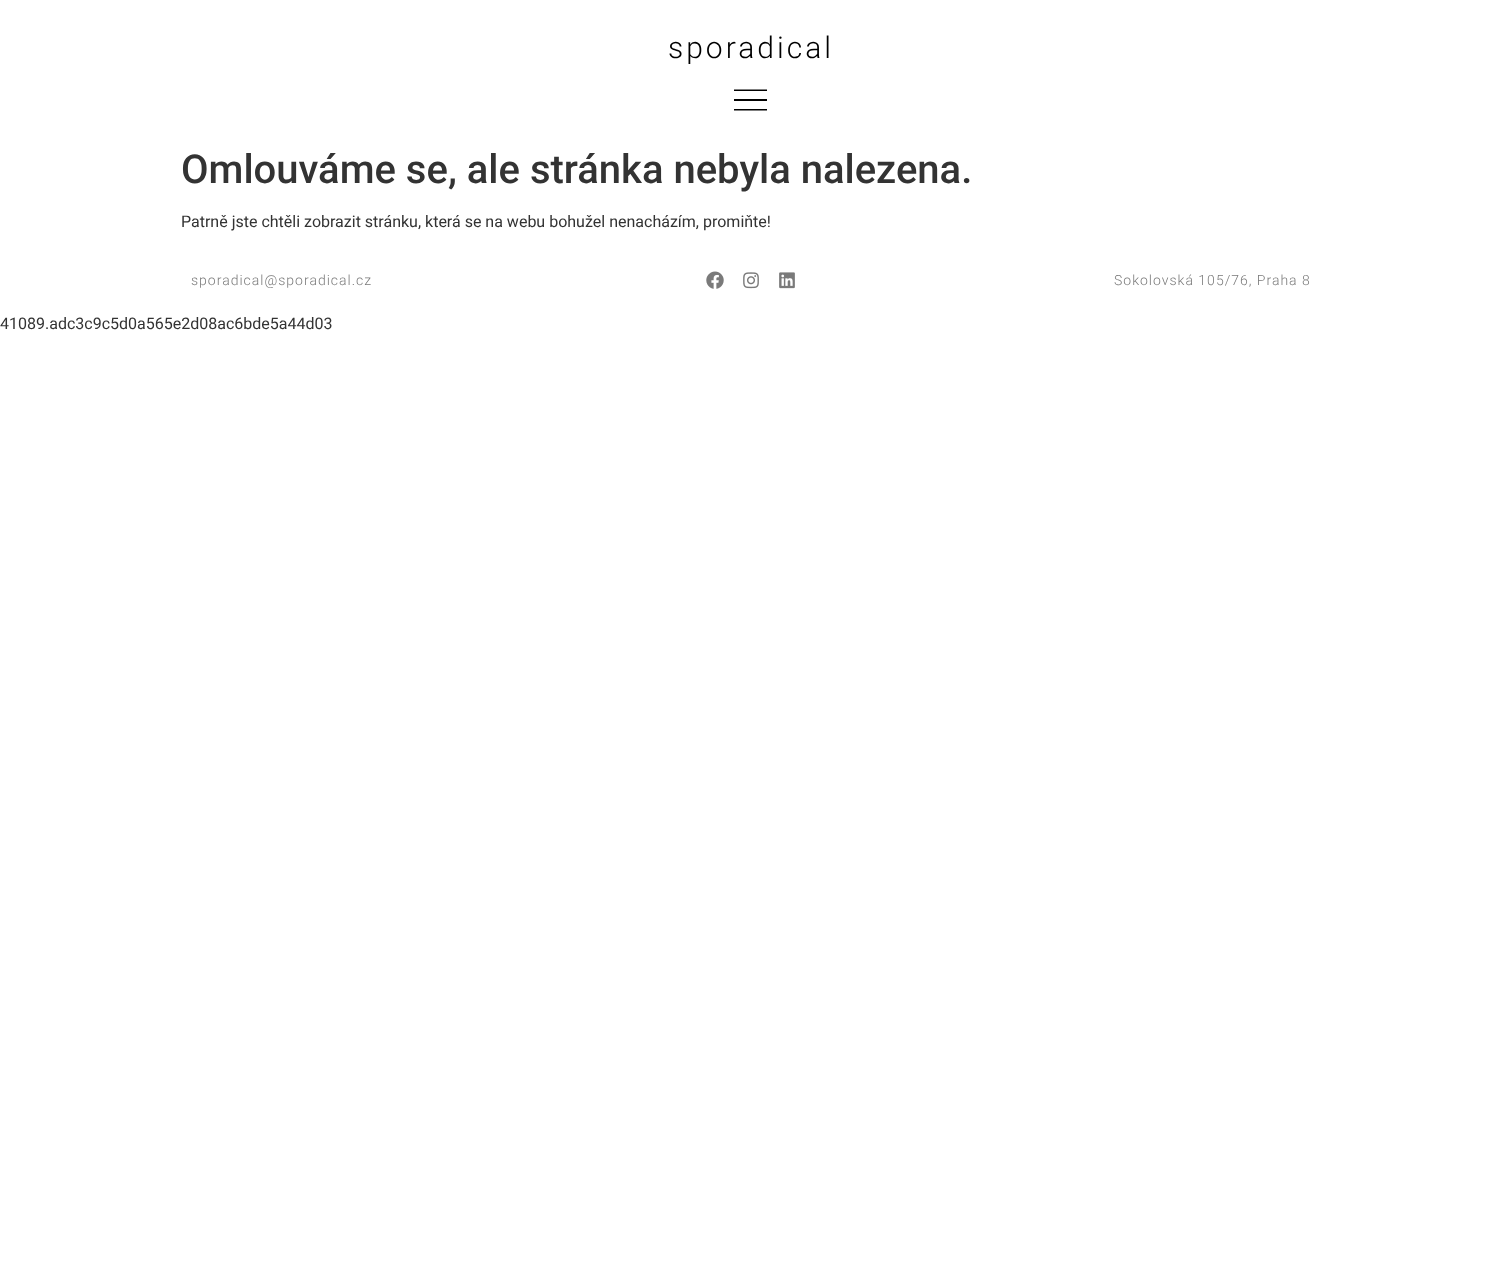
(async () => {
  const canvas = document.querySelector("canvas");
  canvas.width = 1502;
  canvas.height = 1276;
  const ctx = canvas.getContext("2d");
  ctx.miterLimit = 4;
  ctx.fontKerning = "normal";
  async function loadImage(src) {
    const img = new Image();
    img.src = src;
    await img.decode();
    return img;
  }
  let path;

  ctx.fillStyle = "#ffffff";
  ctx.fillRect(0, 0, 1502, 1276);
  ctx.save();
  ctx.beginPath();
  ctx.rect(727, 76, 40, 40);
  ctx.clip();
  ctx.fillStyle = "#000000";
  path = new Path2D("M734 110.5V109H768V110.5ZM734 101V99H768V101ZM734 91V89.5H768V91Z");
  ctx.fill(path);
  ctx.restore();
  ctx.drawImage(await loadImage("img/1.png"), 706, 271, 18, 18);
  ctx.drawImage(await loadImage("img/2.png"), 743, 272, 16, 17);
  ctx.drawImage(await loadImage("img/3.png"), 779, 272, 16, 17);
  ctx.letterSpacing = "3px";
  ctx.font = "300 30px Roboto";
  ctx.fillStyle = "#000000";
  ctx.fillText("sporadical", 668, 58);
  ctx.letterSpacing = "0px";
  ctx.font = "500 40px Roboto";
  ctx.fillStyle = "#333333";
  ctx.fillText("Omlouváme se, ale stránka nebyla nalezena.", 181, 183);
  ctx.font = "16px Roboto";
  ctx.fillText("Patrně jste chtěli zobrazit stránku, která se na webu bohužel nenacházím, promiňte!", 181, 227);
  ctx.letterSpacing = "1px";
  ctx.font = "300 14px Roboto";
  ctx.fillStyle = "#7a7a7a";
  ctx.fillText("sporadical@sporadical.cz", 191, 285);
  ctx.fillText("Sokolovská 105/76, Praha 8", 1114, 285);
  ctx.letterSpacing = "0px";
  ctx.font = "16px Roboto";
  ctx.fillStyle = "#333333";
  ctx.fillText("41089.adc3c9c5d0a565e2d08ac6bde5a44d03", 0, 329);
})();
